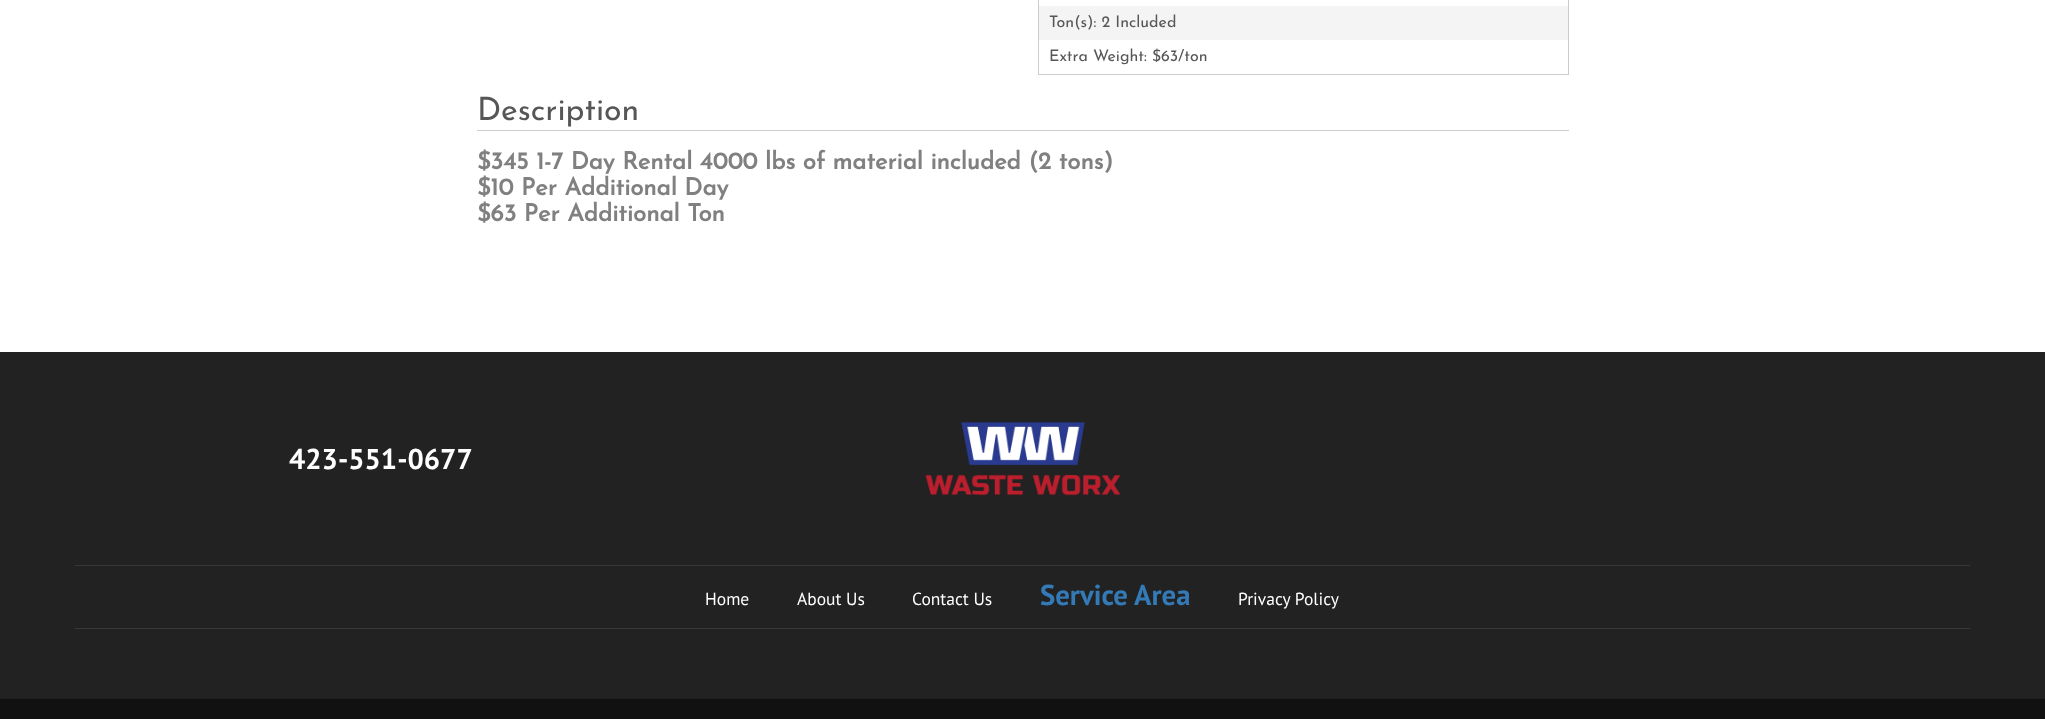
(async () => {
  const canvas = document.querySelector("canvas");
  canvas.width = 2045;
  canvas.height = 719;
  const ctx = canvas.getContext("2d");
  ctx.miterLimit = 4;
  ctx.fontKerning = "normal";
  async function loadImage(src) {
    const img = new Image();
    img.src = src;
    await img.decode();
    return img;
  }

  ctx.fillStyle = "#ffffff";
  ctx.fillRect(0, 0, 2045, 719);
  ctx.strokeStyle = "#cccccc";
  ctx.strokeRect(1038.5, -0.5, 530, 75);
  for (const [x, y, w, h, color] of [
    [1039, 6, 529, 34, "#f4f4f4"],
    [477, 130, 1092, 1, "#cccccc"],
    [0, 352, 2045, 347, "#222222"],
  ]) {
    ctx.fillStyle = color;
    ctx.fillRect(x, y, w, h);
  }
  ctx.drawImage(await loadImage("img/1.png"), 925, 421, 196, 75);
  for (const [x, y, w, h, color] of [
    [75, 565, 1895, 1, "#383838"],
    [75, 628, 1895, 1, "#383838"],
    [0, 699, 2045, 20, "#111111"],
  ]) {
    ctx.fillStyle = color;
    ctx.fillRect(x, y, w, h);
  }
  ctx.font = "100 16px Josefin Sans";
  ctx.fillStyle = "#565656";
  ctx.fillText("Ton(s): 2 Included", 1049, 27);
  ctx.fillText("Extra Weight: $63/ton", 1049, 61);
  ctx.font = "100 32px Josefin Sans";
  ctx.fillText("Description", 477, 120);
  ctx.font = "bold 24px Josefin Sans";
  ctx.fillStyle = "#808080";
  for (const [text, x, y] of [
    ["$345 1-7 Day Rental 4000 lbs of material included (2 tons)", 477, 169],
    ["$10 Per Additional Day", 477, 195],
    ["$63 Per Additional Ton", 477, 221],
  ]) {
    ctx.fillText(text, x, y);
  }
  ctx.font = "bold 28.75px PT Sans";
  ctx.fillStyle = "#ffffff";
  ctx.fillText("423-551-0677", 289, 469);
  ctx.font = "17.5px PT Sans";
  for (const [text, x, y] of [
    ["Home", 705, 605],
    ["About Us", 797, 605],
    ["Contact Us", 912, 605],
  ]) {
    ctx.fillText(text, x, y);
  }
  ctx.font = "bold 28.75px PT Sans";
  ctx.fillStyle = "#337ab7";
  ctx.fillText("Service Area", 1040, 605);
  ctx.font = "17.5px PT Sans";
  ctx.fillStyle = "#ffffff";
  ctx.fillText("Privacy Policy", 1238, 605);
})();
